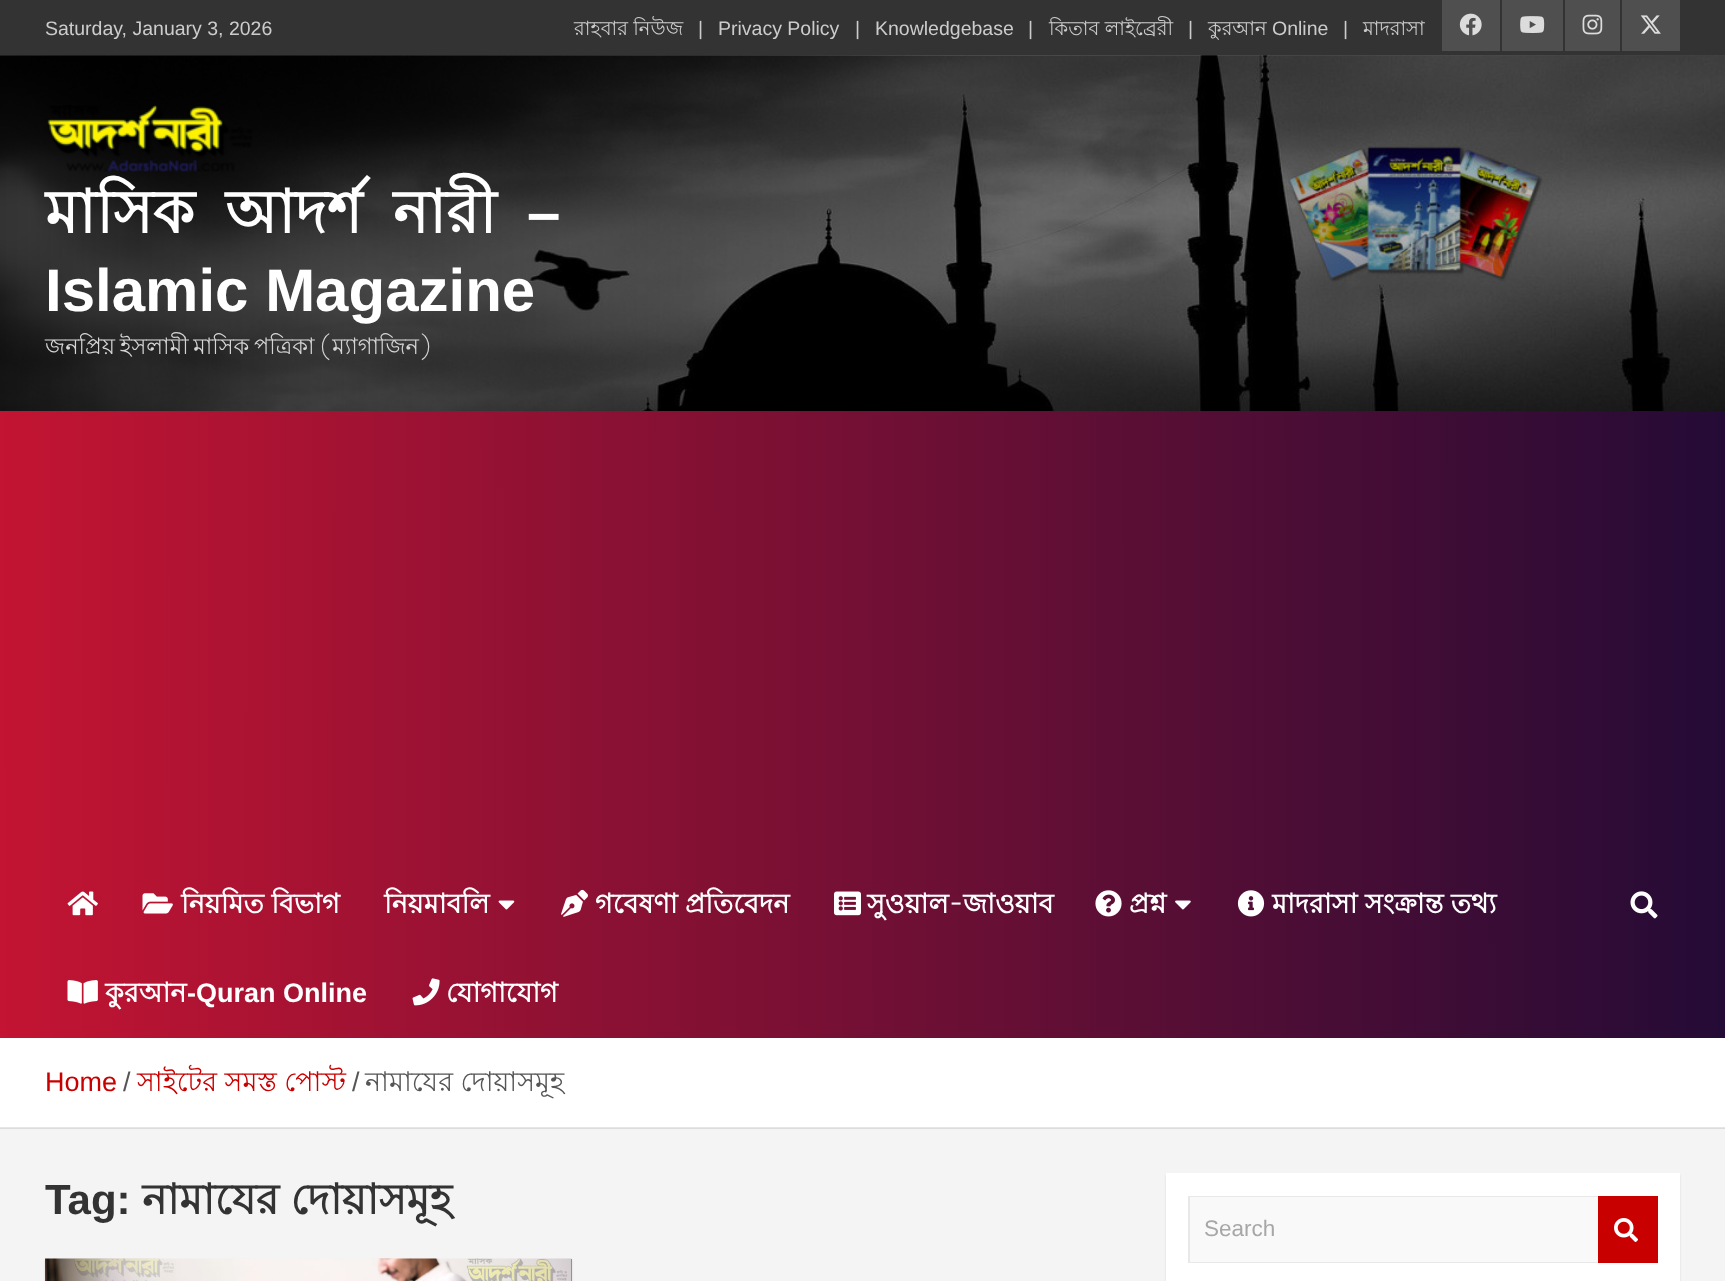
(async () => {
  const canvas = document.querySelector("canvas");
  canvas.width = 1725;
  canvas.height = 1281;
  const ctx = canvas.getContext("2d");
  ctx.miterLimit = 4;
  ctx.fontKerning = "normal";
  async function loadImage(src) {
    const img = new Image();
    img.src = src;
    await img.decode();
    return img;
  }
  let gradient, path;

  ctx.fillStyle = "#f4f4f4";
  ctx.fillRect(0, 0, 1725, 1281);
  for (const [x, y, w, h, color] of [
    [0, 1128, 1725, 1, "#dcdcdc"],
    [0, 0, 1725, 56, "#333333"],
    [1442, 0, 58, 51, "#4f4f4f"],
  ]) {
    ctx.fillStyle = color;
    ctx.fillRect(x, y, w, h);
  }
  ctx.drawImage(await loadImage("img/1.png"), 1459, 13, 23, 23);
  ctx.fillRect(1502, 0, 61, 51);
  ctx.drawImage(await loadImage("img/2.png"), 1520, 16, 25, 17);
  ctx.fillRect(1565, 0, 55, 51);
  ctx.drawImage(await loadImage("img/3.png"), 1582, 14, 21, 21);
  ctx.fillRect(1622, 0, 58, 51);
  ctx.drawImage(await loadImage("img/4.png"), 1640, 15, 21, 19);
  ctx.drawImage(await loadImage("img/5.png"), 0, 55, 1725, 356);
  ctx.drawImage(await loadImage("img/6.png"), 47, 105, 205, 67);
  gradient = ctx.createLinearGradient(0, 725, 1725, 724);
  gradient.addColorStop(0, "#c31432");
  gradient.addColorStop(1, "#240b36");
  ctx.fillStyle = gradient;
  ctx.fillRect(0, 411, 1725, 627);
  ctx.drawImage(await loadImage("img/7.png"), 67, 891, 31, 25);
  ctx.drawImage(await loadImage("img/8.png"), 142, 893, 31, 21);
  ctx.drawImage(await loadImage("img/9.png"), 498, 900, 17, 10);
  ctx.drawImage(await loadImage("img/10.png"), 561, 889, 27, 28);
  ctx.drawImage(await loadImage("img/11.png"), 834, 891, 27, 25);
  ctx.drawImage(await loadImage("img/12.png"), 1095, 890, 27, 27);
  ctx.drawImage(await loadImage("img/13.png"), 1175, 900, 16, 10);
  ctx.drawImage(await loadImage("img/14.png"), 1237, 890, 28, 27);
  ctx.drawImage(await loadImage("img/15.png"), 67, 980, 31, 24);
  ctx.drawImage(await loadImage("img/16.png"), 412, 978, 28, 28);
  ctx.drawImage(await loadImage("img/17.png"), 1630, 891, 28, 28);
  ctx.fillStyle = "#ffffff";
  ctx.fillRect(0, 1038, 1725, 89);
  ctx.fillStyle = "#e6e6e6";
  ctx.fillRect(0, 1127, 1725, 1);
  ctx.fillStyle = "rgba(0, 0, 0, 0.1)";
  ctx.filter = "blur(1px)";
  ctx.beginPath();
  ctx.rect(45, 1260, 527, 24);
  ctx.fill();
  ctx.filter = "none";
  ctx.fillStyle = "#555555";
  ctx.fillRect(571, 1259, 1, 22);
  ctx.drawImage(await loadImage("img/18.png"), 45, 1258, 527, 23);
  ctx.fillStyle = "rgba(0, 0, 0, 0.1)";
  ctx.filter = "blur(1px)";
  ctx.beginPath();
  ctx.rect(1166, 1175, 514, 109);
  ctx.fill();
  ctx.filter = "none";
  ctx.fillStyle = "#ffffff";
  ctx.fillRect(1166, 1173, 514, 108);
  ctx.fillStyle = "#f9f9f9";
  ctx.fillRect(1190, 1197, 408, 65);
  ctx.fillStyle = "#e8e8e8";
  path = new Path2D("M1188 1196H1598V1197H1190Z");
  ctx.fill(path);
  path = new Path2D("M1598 1263H1188L1190 1262H1598Z");
  ctx.fill(path);
  ctx.fillStyle = "rgba(0, 0, 0, 0.09)";
  path = new Path2D("M1188 1263V1196L1190 1197V1262Z");
  ctx.fill(path);
  ctx.fillStyle = "#c80000";
  ctx.fillRect(1598, 1196, 60, 67);
  ctx.drawImage(await loadImage("img/19.png"), 1614, 1218, 24, 24);
  ctx.font = "19.5px Liberation Sans";
  ctx.fillStyle = "#cccccc";
  ctx.fillText("Saturday, January 3, 2026", 45, 35);
  ctx.font = "19.5px Lohit Bengali";
  ctx.fillText("রাহবার নিউজ", 574, 35);
  ctx.font = "19.5px Liberation Sans";
  for (const [text, x, y] of [
    ["|", 698, 35],
    ["Privacy Policy", 718, 35],
    ["|", 855, 35],
    ["Knowledgebase", 875, 35],
    ["|", 1028, 35],
  ]) {
    ctx.fillText(text, x, y);
  }
  ctx.font = "19.5px Lohit Bengali";
  ctx.fillText("কিতাব লাইব্রেরী", 1049, 35);
  ctx.font = "19.5px Liberation Sans";
  ctx.fillText("|", 1188, 35);
  ctx.font = "19.5px Lohit Bengali";
  ctx.fillText("কুরআন", 1208, 35);
  ctx.font = "19.5px Liberation Sans";
  ctx.fillText("Online", 1272, 35);
  ctx.fillText("|", 1343, 35);
  ctx.font = "19.5px Lohit Bengali";
  ctx.fillText("মাদরাসা", 1363, 35);
  ctx.wordSpacing = "14px";
  ctx.font = "bold 60px Lohit Bengali";
  ctx.fillStyle = "#ffffff";
  ctx.fillText("মাসিক আদর্শ নারী", 45, 233);
  ctx.wordSpacing = "0px";
  ctx.font = "bold 60px Liberation Sans";
  ctx.fillText("–", 527, 233);
  ctx.fillText("Islamic Magazine", 45, 311);
  ctx.wordSpacing = "-1.5px";
  ctx.font = "22.5px Lohit Bengali";
  ctx.fillStyle = "#d5d5d5";
  ctx.fillText("জনপ্রিয় ইসলামী মাসিক পত্রিকা (ম্যাগাজিন)", 45, 354);
  ctx.wordSpacing = "0px";
  ctx.font = "bold 27px Lohit Bengali";
  ctx.fillStyle = "#ffffff";
  for (const [text, x, y] of [
    ["নিয়মিত বিভাগ", 181, 913],
    ["নিয়মাবলি", 384, 913],
    ["গবেষণা প্রতিবেদন", 595, 913],
    ["সুওয়াল-জাওয়াব", 867, 913],
    ["প্রশ্ন", 1129, 913],
    ["মাদরাসা সংক্রান্ত তথ্য", 1272, 913],
    ["কুরআন", 105, 1002],
  ]) {
    ctx.fillText(text, x, y);
  }
  ctx.font = "bold 27px Liberation Sans";
  ctx.fillText("-Quran Online", 187, 1002);
  ctx.font = "bold 27px Lohit Bengali";
  ctx.fillText("যোগাযোগ", 446, 1002);
  ctx.font = "27px Liberation Sans";
  ctx.fillStyle = "#c80000";
  ctx.fillText("Home", 45, 1091);
  ctx.fillStyle = "#555555";
  ctx.fillText("/", 123, 1091);
  ctx.font = "27px Lohit Bengali";
  ctx.fillStyle = "#c80000";
  ctx.fillText("সাইটের সমস্ত পোস্ট", 137, 1091);
  ctx.font = "27px Liberation Sans";
  ctx.fillStyle = "#555555";
  ctx.fillText("/", 352, 1091);
  ctx.font = "27px Lohit Bengali";
  ctx.fillText("নামাযের দোয়াসমূহ", 365, 1091);
  ctx.font = "bold 42px Liberation Sans";
  ctx.fillStyle = "#333333";
  ctx.fillText("Tag:", 45, 1214);
  ctx.font = "bold 42px Lohit Bengali";
  ctx.fillText("নামাযের দোয়াসমূহ", 142, 1214);
  ctx.font = "22.5px Liberation Sans";
  ctx.fillStyle = "#a7a7a7";
  ctx.fillText("Search", 1204, 1236);
})();
